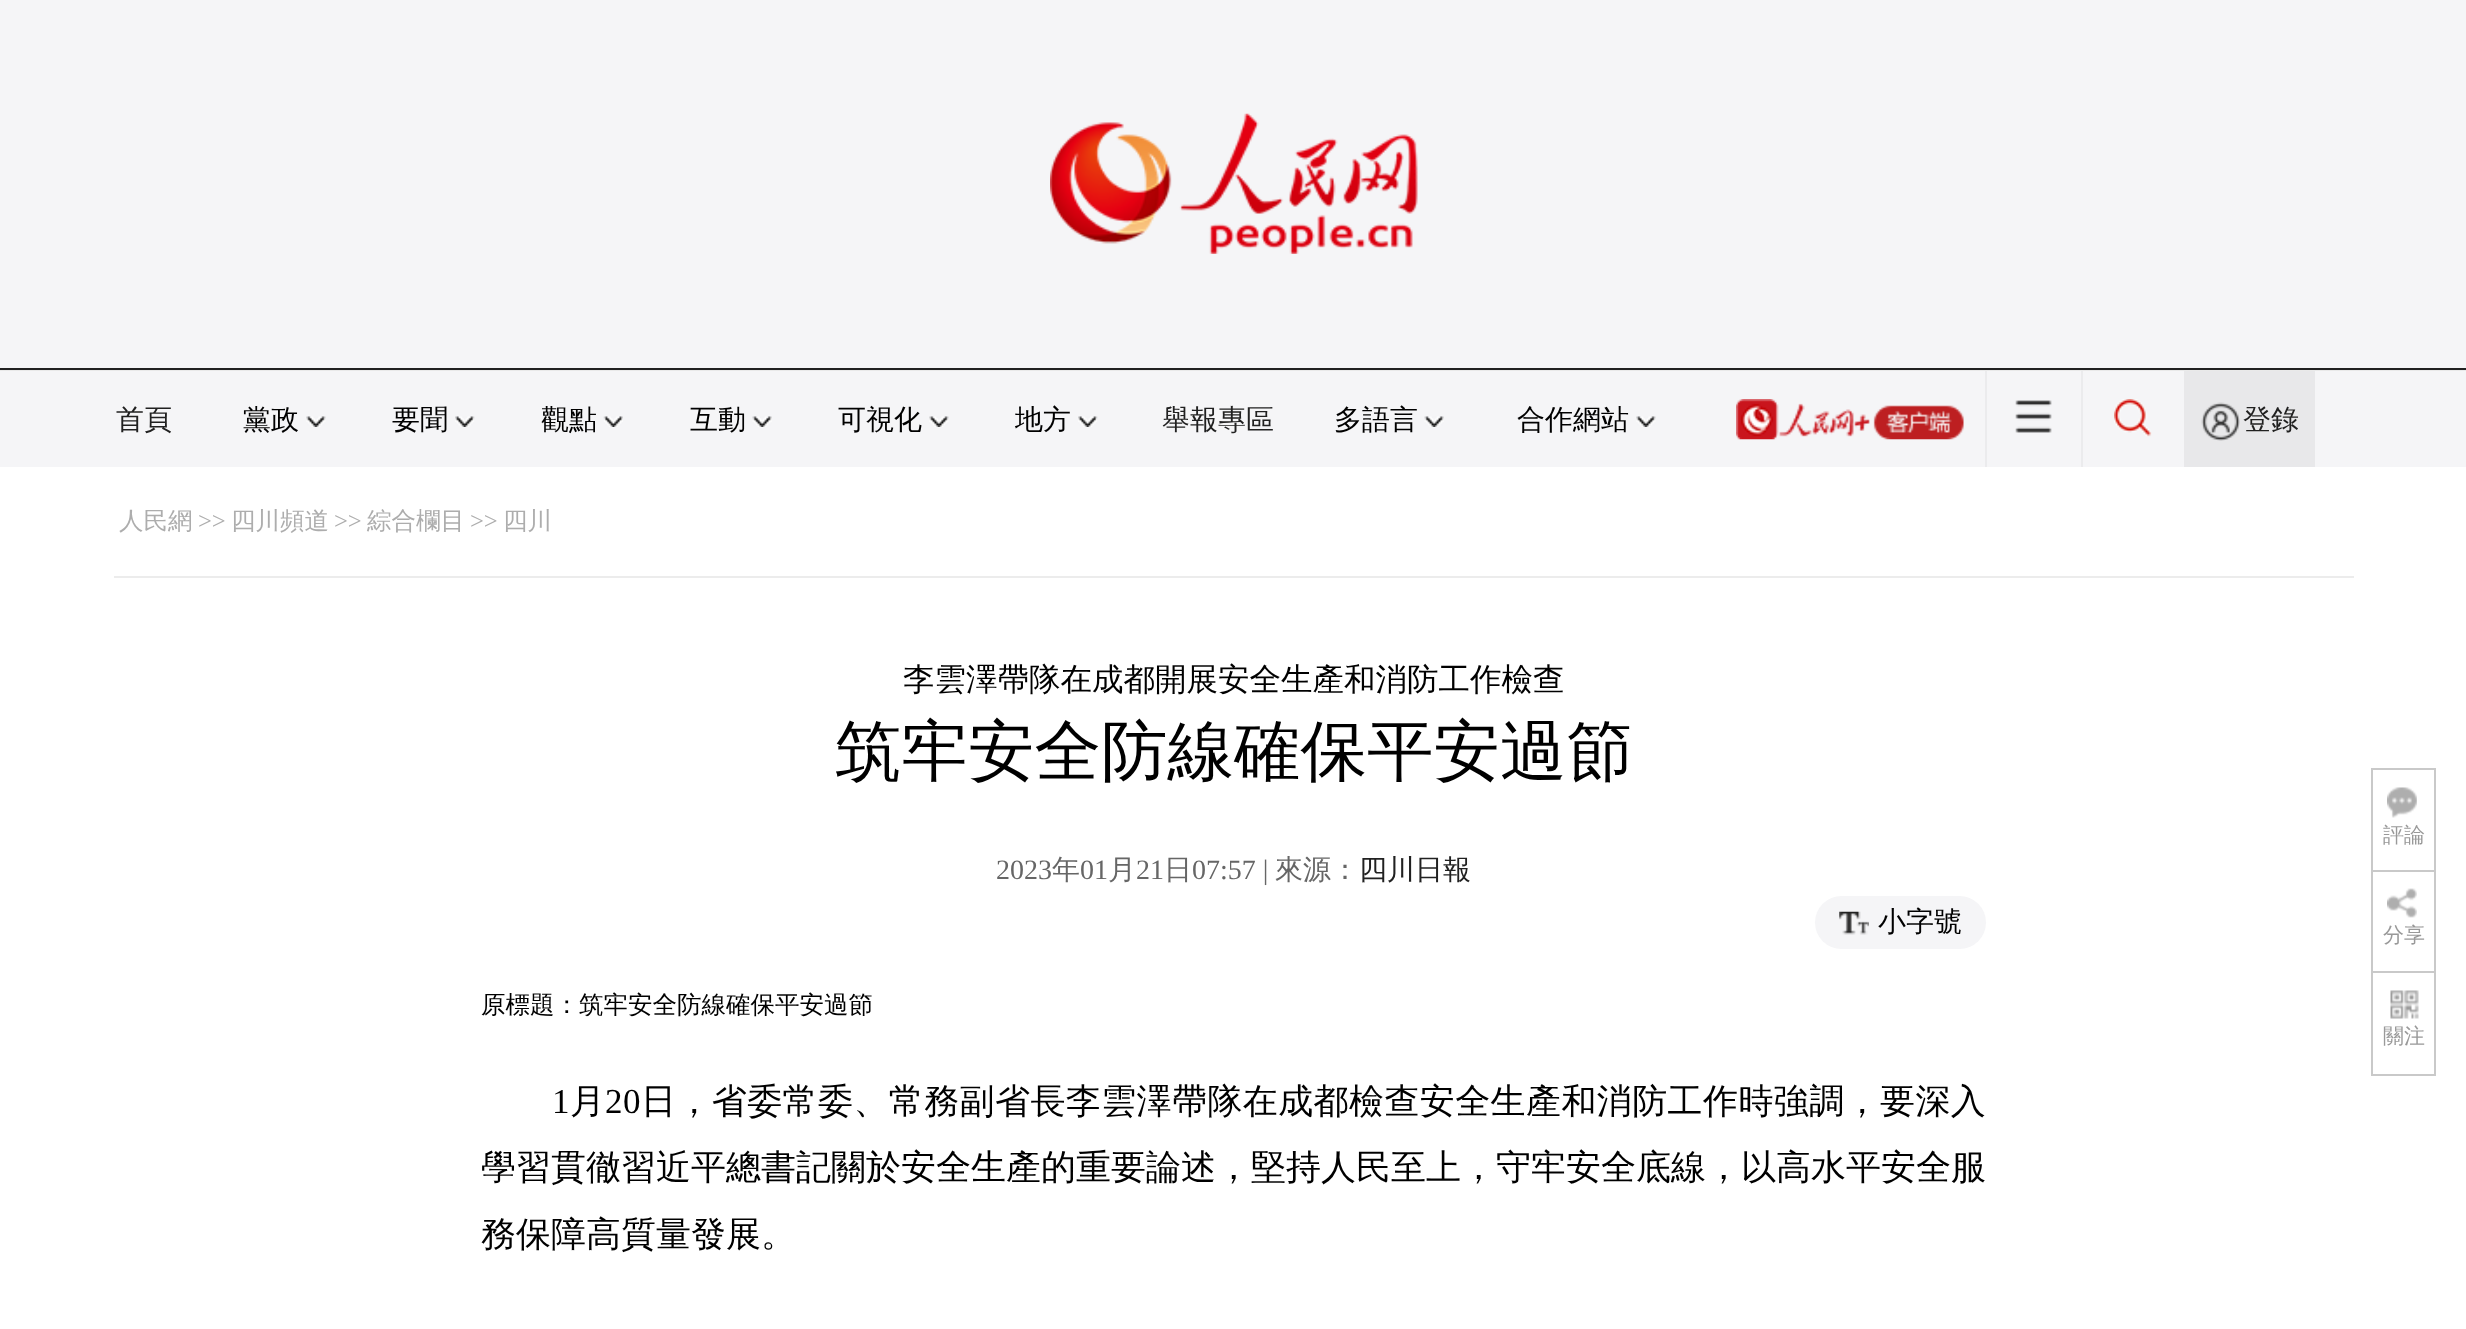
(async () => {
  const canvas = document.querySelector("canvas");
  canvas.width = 2466;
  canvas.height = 1329;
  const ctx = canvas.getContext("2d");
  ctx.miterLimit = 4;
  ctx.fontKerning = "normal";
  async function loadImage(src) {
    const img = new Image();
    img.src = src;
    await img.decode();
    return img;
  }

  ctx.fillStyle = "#ffffff";
  ctx.fillRect(0, 0, 2466, 1329);
  for (const [x, y, w, h, color] of [
    [0, 370, 2466, 1, "#e9e9e9"],
    [0, 0, 2466, 368, "#f5f5f7"],
    [0, 368, 2466, 2, "#212121"],
  ]) {
    ctx.fillStyle = color;
    ctx.fillRect(x, y, w, h);
  }
  ctx.drawImage(await loadImage("img/1.png"), 1050, 113, 368, 141);
  ctx.fillStyle = "#f5f5f7";
  ctx.fillRect(0, 371, 2466, 96);
  ctx.drawImage(await loadImage("img/2.png"), 306, 416, 20, 11);
  ctx.drawImage(await loadImage("img/3.png"), 455, 416, 20, 11);
  ctx.drawImage(await loadImage("img/4.png"), 603, 416, 20, 11);
  ctx.drawImage(await loadImage("img/5.png"), 752, 416, 20, 11);
  ctx.drawImage(await loadImage("img/2.png"), 929, 416, 20, 11);
  ctx.drawImage(await loadImage("img/3.png"), 1078, 416, 20, 11);
  ctx.drawImage(await loadImage("img/6.png"), 1424, 416, 20, 11);
  ctx.drawImage(await loadImage("img/2.png"), 1636, 416, 20, 11);
  ctx.drawImage(await loadImage("img/7.png"), 1736, 399, 228, 41);
  ctx.fillStyle = "#ebebed";
  ctx.fillRect(2081, 371, 2, 96);
  ctx.fillRect(1985, 371, 2, 96);
  ctx.drawImage(await loadImage("img/8.png"), 2015, 400, 37, 33);
  ctx.drawImage(await loadImage("img/9.png"), 2114, 399, 38, 38);
  ctx.fillStyle = "#e8e8ea";
  ctx.fillRect(2184, 371, 131, 96);
  ctx.drawImage(await loadImage("img/10.png"), 2201, 402, 39, 39);
  ctx.fillStyle = "#ececec";
  ctx.fillRect(114, 576, 2240, 2);
  ctx.fillStyle = "#f5f5f7";
  ctx.beginPath();
  ctx.roundRect(1815, 896, 171, 53, 26.5);
  ctx.fill();
  ctx.drawImage(await loadImage("img/11.png"), 1839, 911, 30, 24);
  ctx.save();
  ctx.beginPath();
  ctx.rect(2371, 768, 65, 102);
  ctx.clip();
  ctx.strokeStyle = "#c9c9c9";
  ctx.lineWidth = 2;
  ctx.strokeRect(2372, 769, 63, 105);
  ctx.restore();
  ctx.drawImage(await loadImage("img/12.png"), 2387, 787, 30, 31);
  ctx.save();
  ctx.beginPath();
  ctx.rect(2371, 870, 65, 101);
  ctx.clip();
  ctx.strokeStyle = "#c9c9c9";
  ctx.lineWidth = 2;
  ctx.strokeRect(2372, 871, 63, 103);
  ctx.restore();
  ctx.drawImage(await loadImage("img/13.png"), 2387, 888, 30, 30);
  ctx.strokeStyle = "#c9c9c9";
  ctx.lineWidth = 2;
  ctx.strokeRect(2372, 972, 63, 103);
  ctx.drawImage(await loadImage("img/14.png"), 2390, 990, 29, 29);
  ctx.font = "500 28px WenQuanYi Zen Hei";
  ctx.fillStyle = "#212121";
  ctx.fillText("首頁", 116, 429);
  ctx.fillStyle = "#000000";
  for (const [text, x, y] of [
    ["黨政", 243, 429],
    ["要聞", 392, 429],
    ["觀點", 541, 429],
    ["互動", 690, 429],
    ["可視化", 838, 429],
    ["地方", 1015, 429],
  ]) {
    ctx.fillText(text, x, y);
  }
  ctx.fillStyle = "#212121";
  ctx.fillText("舉報專區", 1162, 429);
  ctx.fillStyle = "#000000";
  ctx.fillText("多語言", 1334, 429);
  ctx.fillText("合作網站", 1517, 429);
  ctx.fillStyle = "#212121";
  ctx.fillText("登錄", 2243, 429);
  ctx.font = "500 24.5px WenQuanYi Zen Hei";
  ctx.fillStyle = "#adadad";
  ctx.fillText("人民網", 119, 529);
  ctx.font = "24.5px Liberation Serif";
  ctx.fillText(">>", 198, 529);
  ctx.font = "500 24.5px WenQuanYi Zen Hei";
  ctx.fillText("四川頻道", 231, 529);
  ctx.font = "24.5px Liberation Serif";
  ctx.fillText(">>", 334, 529);
  ctx.font = "500 24.5px WenQuanYi Zen Hei";
  ctx.fillText("綜合欄目", 367, 529);
  ctx.font = "24.5px Liberation Serif";
  ctx.fillText(">>", 470, 529);
  ctx.font = "500 24.5px WenQuanYi Zen Hei";
  ctx.fillText("四川", 503, 529);
  ctx.font = "500 31.5px WenQuanYi Zen Hei";
  ctx.fillStyle = "#000000";
  ctx.fillText("李雲澤帶隊在成都開展安全生產和消防工作檢查", 903, 690);
  ctx.font = "500 66.5px WenQuanYi Zen Hei";
  ctx.fillText("筑牢安全防線確保平安過節", 835, 774);
  ctx.font = "28px Liberation Serif";
  ctx.fillStyle = "#666666";
  ctx.fillText("2023", 996, 879);
  ctx.font = "500 28px WenQuanYi Zen Hei";
  ctx.fillText("年", 1052, 879);
  ctx.font = "28px Liberation Serif";
  ctx.fillText("01", 1080, 879);
  ctx.font = "500 28px WenQuanYi Zen Hei";
  ctx.fillText("月", 1108, 879);
  ctx.font = "28px Liberation Serif";
  ctx.fillText("21", 1136, 879);
  ctx.font = "500 28px WenQuanYi Zen Hei";
  ctx.fillText("日", 1164, 879);
  ctx.font = "28px Liberation Serif";
  ctx.fillText("07:57 |", 1192, 879);
  ctx.font = "500 28px WenQuanYi Zen Hei";
  ctx.fillText("來源：", 1275, 879);
  ctx.fillStyle = "#212121";
  ctx.fillText("四川日報", 1359, 879);
  ctx.fillStyle = "#000000";
  ctx.fillText("小字號", 1878, 931);
  ctx.font = "500 24.5px WenQuanYi Zen Hei";
  ctx.fillText("原標題：筑牢安全防線確保平安過節", 481, 1013);
  ctx.letterSpacing = "0.4px";
  ctx.font = "35px Liberation Serif";
  ctx.fillText("1", 552, 1113);
  ctx.font = "500 35px WenQuanYi Zen Hei";
  ctx.fillText("月", 570, 1113);
  ctx.font = "35px Liberation Serif";
  ctx.fillText("20", 605, 1113);
  ctx.font = "500 35px WenQuanYi Zen Hei";
  ctx.fillText("日，省委常委、常務副省長李雲澤帶隊在成都檢查安全生產和消防工作時強調，要深入", 641, 1113);
  ctx.letterSpacing = "0px";
  ctx.fillText("學習貫徹習近平總書記關於安全生產的重要論述，堅持人民至上，守牢安全底線，以高水平安全服", 481, 1179);
  ctx.fillText("務保障高質量發展。", 481, 1246);
  ctx.font = "500 21px WenQuanYi Zen Hei";
  ctx.fillStyle = "#999999";
  for (const [text, x, y] of [
    ["評論", 2383, 842],
    ["分享", 2383, 942],
    ["關注", 2383, 1043],
  ]) {
    ctx.fillText(text, x, y);
  }
})();
